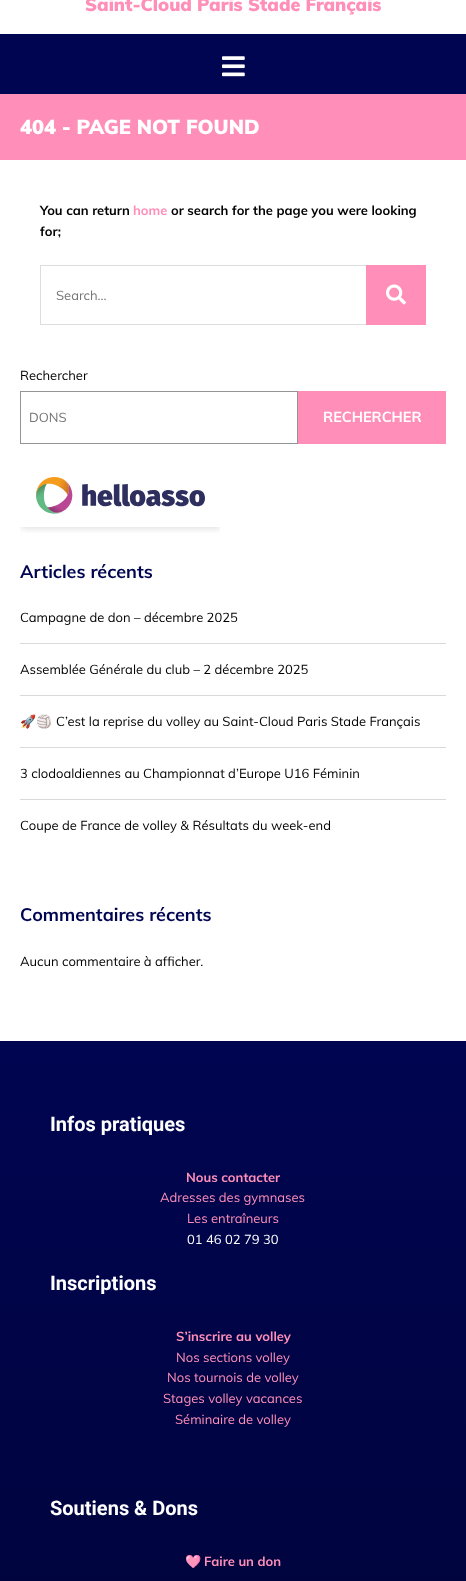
(async () => {
  const canvas = document.querySelector("canvas");
  canvas.width = 466;
  canvas.height = 1581;
  const ctx = canvas.getContext("2d");
  ctx.miterLimit = 4;
  ctx.fontKerning = "normal";
  async function loadImage(src) {
    const img = new Image();
    img.src = src;
    await img.decode();
    return img;
  }
  let gradient;

  ctx.fillStyle = "#ffffff";
  ctx.fillRect(0, 0, 466, 1581);
  ctx.fillStyle = "#000551";
  ctx.fillRect(0, 34, 466, 60);
  ctx.drawImage(await loadImage("img/1.png"), 222, 56, 23, 21);
  for (const [x, y, w, h, color] of [
    [0, 94, 466, 66, "#ff8fb8"],
    [40, 265, 326, 1, "#dddddd"],
    [40, 324, 326, 1, "#dddddd"],
    [40, 265, 1, 60, "#dddddd"],
    [366, 265, 60, 60, "#ff8fb8"],
  ]) {
    ctx.fillStyle = color;
    ctx.fillRect(x, y, w, h);
  }
  ctx.drawImage(await loadImage("img/2.png"), 386, 284, 20, 21);
  ctx.strokeStyle = "#949494";
  ctx.strokeRect(20.5, 391.5, 277, 52);
  ctx.fillRect(298, 391, 148, 53);
  ctx.drawImage(await loadImage("img/3.png"), 20, 477, 200, 56);
  for (const [x, y, w, h, color] of [
    [20, 643, 426, 1, "#d9d9d9"],
    [20, 695, 426, 1, "#d9d9d9"],
    [20, 747, 426, 1, "#d9d9d9"],
    [20, 799, 426, 1, "#d9d9d9"],
  ]) {
    ctx.fillStyle = color;
    ctx.fillRect(x, y, w, h);
  }
  gradient = ctx.createLinearGradient(233, 1041, 233, 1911);
  gradient.addColorStop(0, "#000551");
  gradient.addColorStop(1, "#000333");
  ctx.fillStyle = gradient;
  ctx.fillRect(0, 1041, 466, 540);
  ctx.font = "900 18px Muli";
  ctx.fillStyle = "#ff8fb8";
  ctx.fillText("Saint-Cloud Paris Stade Français", 85, 11);
  ctx.font = "900 20px Muli";
  ctx.fillStyle = "#ffffff";
  ctx.fillText("404 - PAGE NOT FOUND", 20, 134);
  ctx.font = "bold 13px Muli";
  ctx.fillStyle = "#000000";
  ctx.fillText("You can return", 40, 215);
  ctx.fillStyle = "#ff8fb8";
  ctx.fillText("home", 133, 215);
  ctx.fillStyle = "#000000";
  ctx.fillText("or search for the page you were looking", 171, 215);
  ctx.fillText("for;", 40, 236);
  ctx.font = "13px Muli";
  ctx.fillStyle = "#757575";
  ctx.fillText("Search...", 56, 300);
  ctx.fillStyle = "#000000";
  ctx.fillText("Rechercher", 20, 380);
  ctx.fillStyle = "#757575";
  ctx.fillText("DONS", 29, 422);
  ctx.font = "bold 14.5px Muli";
  ctx.fillStyle = "#ffffff";
  ctx.fillText("RECHERCHER", 323, 422);
  ctx.font = "bold 18px Muli";
  ctx.fillStyle = "#000551";
  ctx.fillText("Articles récents", 20, 578);
  ctx.font = "13px Muli";
  ctx.fillStyle = "#000000";
  ctx.fillText("Campagne de don – décembre 2025", 20, 622);
  ctx.fillText("Assemblée Générale du club – 2 décembre 2025", 20, 674);
  ctx.font = "13px Noto Color Emoji";
  ctx.fillText("🚀🏐", 20, 726);
  ctx.font = "13px Muli";
  for (const [text, x, y] of [
    ["C’est la reprise du volley au Saint-Cloud Paris Stade Français", 56, 726],
    ["3 clodoaldiennes au Championnat d’Europe U16 Féminin", 20, 778],
    ["Coupe de France de volley & Résultats du week-end", 20, 830],
  ]) {
    ctx.fillText(text, x, y);
  }
  ctx.font = "bold 18px Muli";
  ctx.fillStyle = "#000551";
  ctx.fillText("Commentaires récents", 20, 921);
  ctx.font = "13px Muli";
  ctx.fillStyle = "#000000";
  ctx.fillText("Aucun commentaire à afficher.", 20, 966);
  ctx.font = "bold 20px Roboto";
  ctx.fillStyle = "#ffffff";
  ctx.fillText("Infos pratiques", 50, 1131);
  ctx.font = "bold 13px Muli";
  ctx.fillStyle = "#ff8fb8";
  ctx.fillText("Nous contacter", 186, 1182);
  ctx.font = "13px Muli";
  ctx.fillText("Adresses des gymnases", 160, 1202);
  ctx.fillText("Les entraîneurs", 187, 1223);
  ctx.fillStyle = "#ffffff";
  ctx.fillText("01 46 02 79 30", 187, 1244);
  ctx.font = "bold 20px Roboto";
  ctx.fillText("Inscriptions", 50, 1290);
  ctx.font = "bold 13px Muli";
  ctx.fillStyle = "#ff8fb8";
  ctx.fillText("S’inscrire au volley", 176, 1341);
  ctx.font = "13px Muli";
  for (const [text, x, y] of [
    ["Nos sections volley", 176, 1362],
    ["Nos tournois de volley", 167, 1382],
    ["Stages volley vacances", 163, 1403],
    ["Séminaire de volley", 175, 1424],
  ]) {
    ctx.fillText(text, x, y);
  }
  ctx.font = "bold 20px Roboto";
  ctx.fillStyle = "#ffffff";
  ctx.fillText("Soutiens & Dons", 50, 1515);
  ctx.font = "bold 13px Noto Color Emoji";
  ctx.fillStyle = "#ff8fb8";
  ctx.fillText("🩷", 185, 1566);
  ctx.font = "bold 13px Muli";
  ctx.fillText("Faire un don", 204, 1566);
})();
